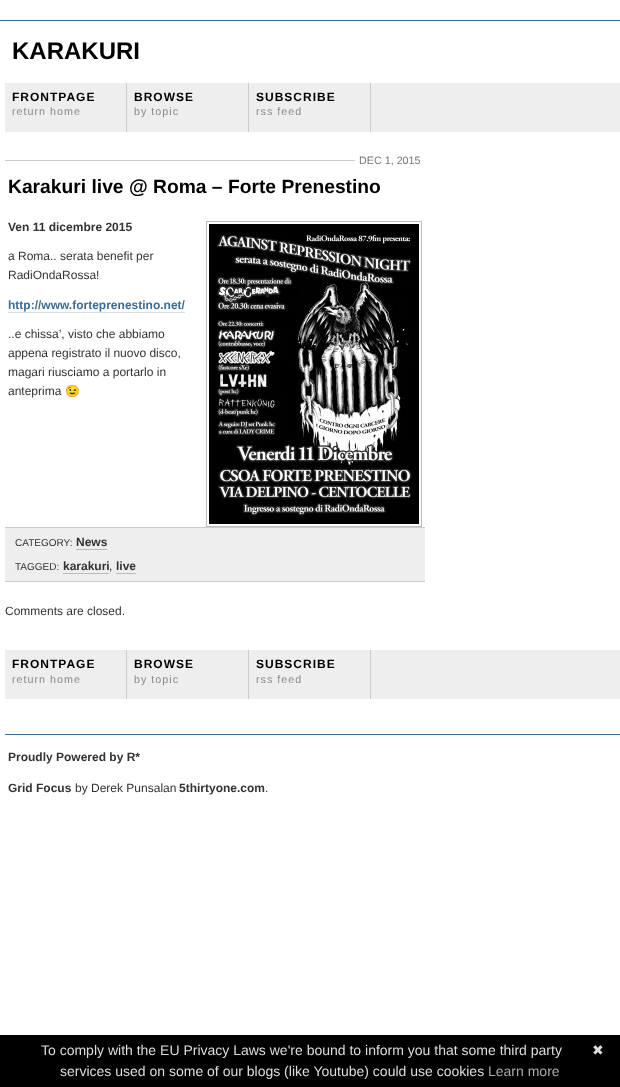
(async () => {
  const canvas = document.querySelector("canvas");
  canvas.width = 620;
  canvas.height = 1087;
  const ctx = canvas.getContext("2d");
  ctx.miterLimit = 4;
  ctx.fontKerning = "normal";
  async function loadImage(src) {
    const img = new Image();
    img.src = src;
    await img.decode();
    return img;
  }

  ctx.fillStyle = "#ffffff";
  ctx.fillRect(0, 0, 620, 1087);
  for (const [x, y, w, h, color] of [
    [0, 20, 620, 1, "#3c6c92"],
    [5, 83, 615, 49, "#eeeeee"],
    [126, 83, 1, 49, "#cccccc"],
    [248, 83, 1, 49, "#cccccc"],
    [370, 83, 1, 49, "#cccccc"],
    [5, 160, 350, 1, "#cccccc"],
  ]) {
    ctx.fillStyle = color;
    ctx.fillRect(x, y, w, h);
  }
  ctx.strokeStyle = "#bbbbbb";
  ctx.strokeRect(206.5, 221.5, 215, 305);
  ctx.drawImage(await loadImage("img/1.png"), 209, 224, 210, 300);
  for (const [x, y, w, h, color] of [
    [8, 312, 177, 1, "#dddddd"],
    [5, 528, 420, 53, "#eeeeee"],
    [5, 527, 420, 1, "#cccccc"],
    [5, 581, 420, 1, "#cccccc"],
    [76, 549, 31, 1, "#bbbbbb"],
    [63, 573, 46, 1, "#bbbbbb"],
    [116, 573, 20, 1, "#bbbbbb"],
    [5, 650, 615, 49, "#eeeeee"],
    [126, 650, 1, 49, "#cccccc"],
    [248, 650, 1, 49, "#cccccc"],
    [370, 650, 1, 49, "#cccccc"],
    [5, 734, 615, 1, "#3c6c92"],
    [0, 1035, 620, 52, "#000000"],
  ]) {
    ctx.fillStyle = color;
    ctx.fillRect(x, y, w, h);
  }
  ctx.font = "bold 24px Liberation Sans";
  ctx.fillText("KARAKURI", 12, 59);
  ctx.letterSpacing = "1px";
  ctx.font = "bold 12px Liberation Sans";
  ctx.fillText("FRONTPAGE", 12, 101);
  ctx.font = "10.75px Liberation Sans";
  ctx.fillStyle = "#888888";
  ctx.fillText("return home", 12, 115);
  ctx.font = "bold 12px Liberation Sans";
  ctx.fillStyle = "#000000";
  ctx.fillText("BROWSE", 134, 101);
  ctx.font = "10.75px Liberation Sans";
  ctx.fillStyle = "#888888";
  ctx.fillText("by topic", 134, 115);
  ctx.font = "bold 12px Liberation Sans";
  ctx.fillStyle = "#000000";
  ctx.fillText("SUBSCRIBE", 256, 101);
  ctx.font = "10.75px Liberation Sans";
  ctx.fillStyle = "#888888";
  ctx.fillText("rss feed", 256, 115);
  ctx.letterSpacing = "0px";
  ctx.fillStyle = "#777777";
  ctx.fillText("DEC 1, 2015", 359, 164);
  ctx.font = "bold 19.25px Liberation Sans";
  ctx.fillStyle = "#000000";
  ctx.fillText("Karakuri live @ Roma – Forte Prenestino", 8, 193);
  ctx.font = "bold 12px Liberation Sans";
  ctx.fillStyle = "#333333";
  ctx.fillText("Ven 11 dicembre 2015", 8, 231);
  ctx.font = "12px Liberation Sans";
  ctx.fillText("a Roma.. serata benefit per", 8, 260);
  ctx.fillText("RadiOndaRossa!", 8, 279);
  ctx.font = "bold 12px Liberation Sans";
  ctx.fillStyle = "#3c6c92";
  ctx.fillText("http://www.forteprenestino.net/", 8, 309);
  ctx.font = "12px Liberation Sans";
  ctx.fillStyle = "#333333";
  for (const [text, x, y] of [
    ["..e chissa’, visto che abbiamo", 8, 338],
    ["appena registrato il nuovo disco,", 8, 357],
    ["magari riusciamo a portarlo in", 8, 376],
    ["anteprima", 8, 395],
  ]) {
    ctx.fillText(text, x, y);
  }
  ctx.font = "12px Noto Color Emoji";
  ctx.fillText("😉", 65, 395);
  ctx.font = "10px Liberation Sans";
  ctx.fillText("CATEGORY:", 15, 546);
  ctx.font = "bold 12px Liberation Sans";
  ctx.fillText("News", 76, 546);
  ctx.font = "10px Liberation Sans";
  ctx.fillText("TAGGED:", 15, 570);
  ctx.font = "bold 12px Liberation Sans";
  ctx.fillText("karakuri", 63, 570);
  ctx.font = "12px Liberation Sans";
  ctx.fillText(",", 109, 570);
  ctx.font = "bold 12px Liberation Sans";
  ctx.fillText("live", 116, 570);
  ctx.font = "12px Liberation Sans";
  ctx.fillText("Comments are closed.", 5, 615);
  ctx.letterSpacing = "1px";
  ctx.font = "bold 12px Liberation Sans";
  ctx.fillStyle = "#000000";
  ctx.fillText("FRONTPAGE", 12, 668);
  ctx.font = "10.75px Liberation Sans";
  ctx.fillStyle = "#888888";
  ctx.fillText("return home", 12, 683);
  ctx.font = "bold 12px Liberation Sans";
  ctx.fillStyle = "#000000";
  ctx.fillText("BROWSE", 134, 668);
  ctx.font = "10.75px Liberation Sans";
  ctx.fillStyle = "#888888";
  ctx.fillText("by topic", 134, 683);
  ctx.font = "bold 12px Liberation Sans";
  ctx.fillStyle = "#000000";
  ctx.fillText("SUBSCRIBE", 256, 668);
  ctx.font = "10.75px Liberation Sans";
  ctx.fillStyle = "#888888";
  ctx.fillText("rss feed", 256, 683);
  ctx.letterSpacing = "0px";
  ctx.font = "bold 12px Liberation Sans";
  ctx.fillStyle = "#333333";
  ctx.fillText("Proudly Powered by R*", 8, 761);
  ctx.fillText("Grid Focus", 8, 792);
  ctx.font = "12px Liberation Sans";
  ctx.fillText("by Derek Punsalan", 75, 792);
  ctx.font = "bold 12px Liberation Sans";
  ctx.fillText("5thirtyone.com", 179, 792);
  ctx.font = "12px Liberation Sans";
  ctx.fillText(".", 265, 792);
  ctx.font = "14px Liberation Sans";
  ctx.fillStyle = "#dddddd";
  ctx.fillText("To comply with the EU Privacy Laws we're bound to inform you that some third party", 41, 1055);
  ctx.font = "14px DejaVu Sans";
  ctx.fillText("✖", 592, 1055);
  ctx.font = "14px Liberation Sans";
  ctx.fillText("services used on some of our blogs (like Youtube) could use cookies", 60, 1076);
  ctx.fillStyle = "#aaaaaa";
  ctx.fillText("Learn more", 488, 1076);
})();
